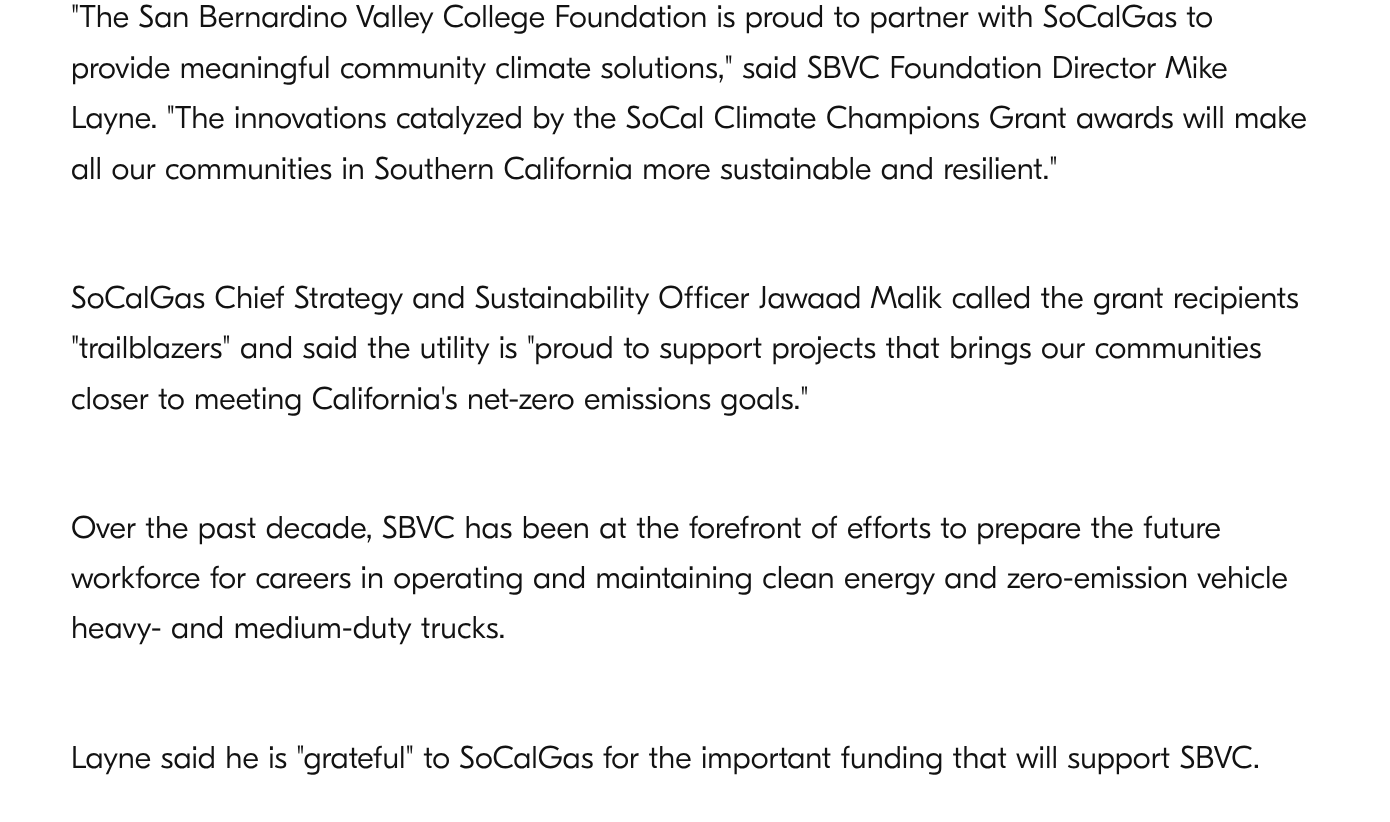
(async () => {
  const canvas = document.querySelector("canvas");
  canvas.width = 1390;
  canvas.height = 822;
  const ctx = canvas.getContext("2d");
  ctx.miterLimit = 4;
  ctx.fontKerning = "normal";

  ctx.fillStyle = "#ffffff";
  ctx.fillRect(0, 0, 1390, 822);
  ctx.font = "300 31.5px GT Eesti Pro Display";
  ctx.fillStyle = "#121212";
  for (const [text, x, y] of [
    ["\"The San Bernardino Valley College Foundation is proud to partner with SoCalGas to", 71, 27],
    ["provide meaningful community climate solutions,\" said SBVC Foundation Director Mike", 71, 78],
    ["Layne. \"The innovations catalyzed by the SoCal Climate Champions Grant awards will make", 71, 128],
    ["all our communities in Southern California more sustainable and resilient.\"", 71, 179],
    ["SoCalGas Chief Strategy and Sustainability Officer Jawaad Malik called the grant recipients", 71, 308],
    ["\"trailblazers\" and said the utility is \"proud to support projects that brings our communities", 71, 358],
    ["closer to meeting California's net-zero emissions goals.\"", 71, 409],
    ["Over the past decade, SBVC has been at the forefront of efforts to prepare the future", 71, 538],
    ["workforce for careers in operating and maintaining clean energy and zero-emission", 71, 588],
    ["vehicle", 1197, 588],
    ["heavy- and medium-duty trucks.", 71, 638],
    ["Layne said he is \"grateful\" to SoCalGas for the important funding that will support SBVC.", 71, 768],
  ]) {
    ctx.fillText(text, x, y);
  }
})();
